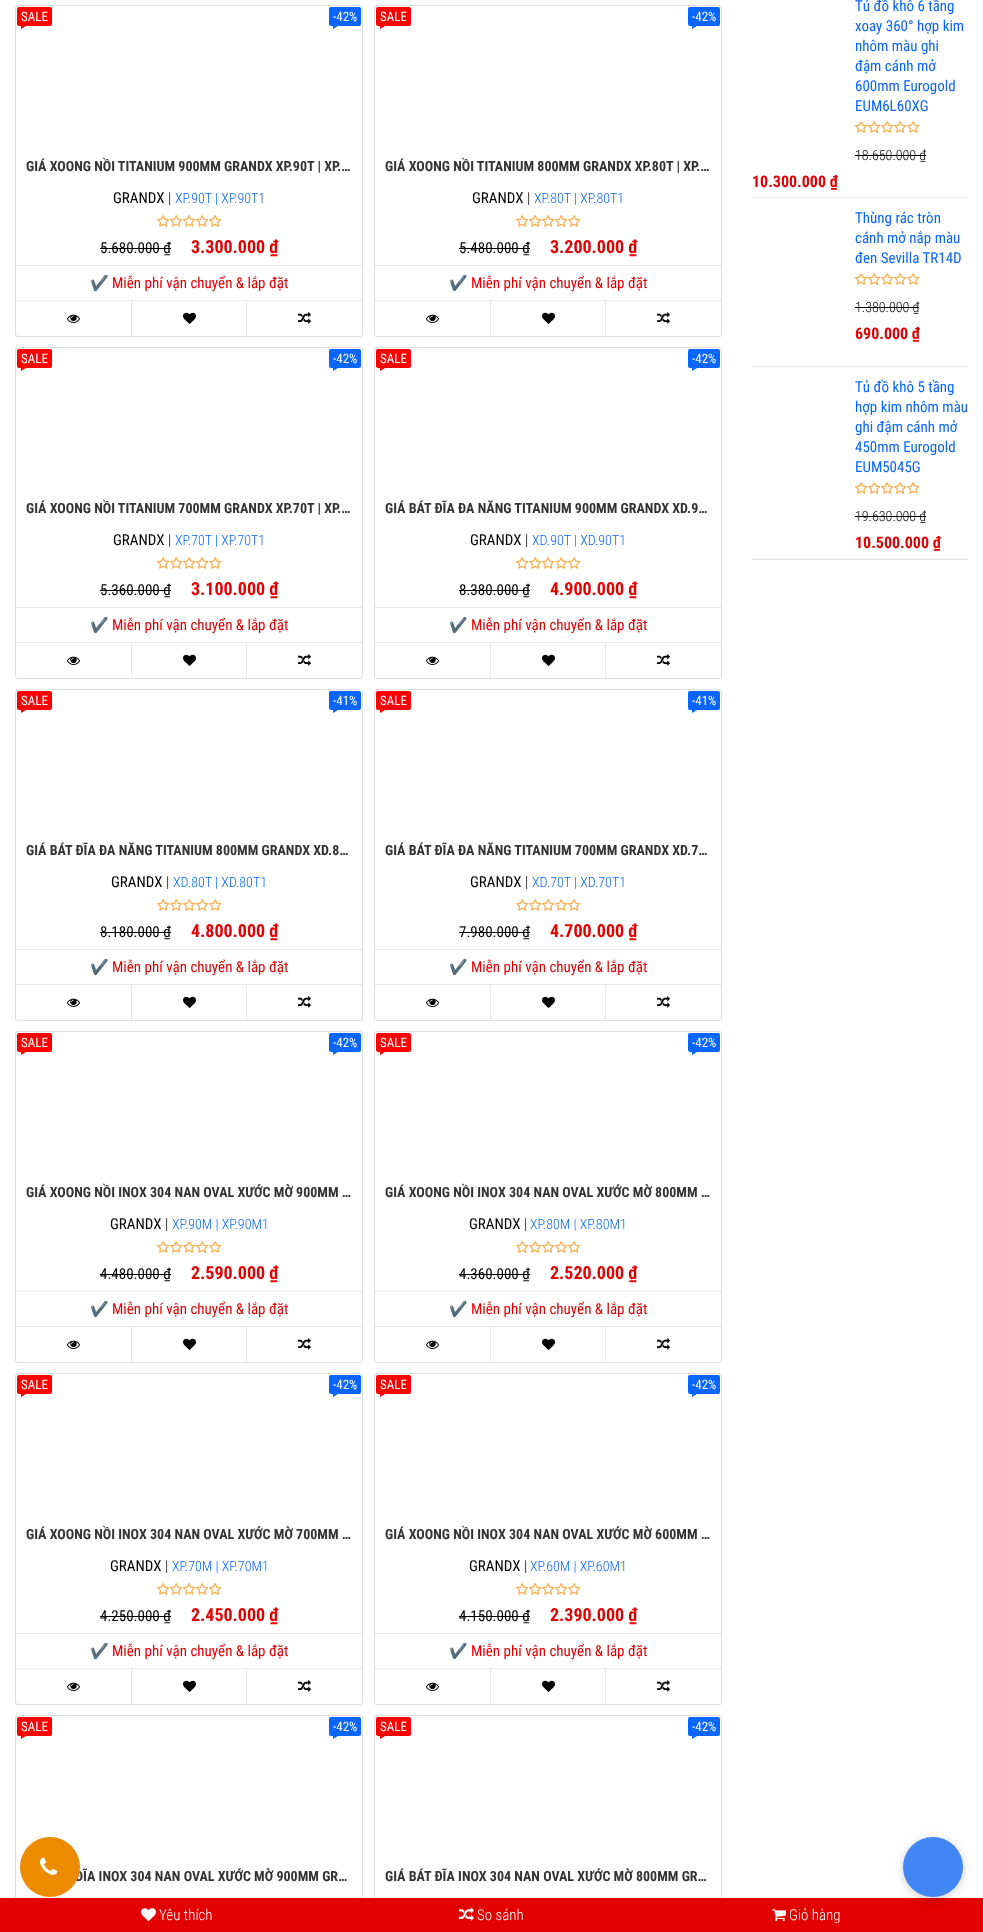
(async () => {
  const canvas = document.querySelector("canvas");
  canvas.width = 983;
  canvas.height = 1932;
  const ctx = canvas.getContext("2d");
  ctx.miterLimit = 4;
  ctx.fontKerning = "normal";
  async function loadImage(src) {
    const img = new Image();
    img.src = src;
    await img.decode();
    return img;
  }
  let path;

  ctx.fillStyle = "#ffffff";
  ctx.fillRect(0, 0, 983, 1932);
  ctx.beginPath();
  ctx.roundRect(15.5, 5.5, 347, 331, 2.5);
  ctx.strokeStyle = "#dddddd";
  ctx.stroke();
  ctx.fillStyle = "#ff0000";
  ctx.beginPath();
  ctx.roundRect(17, 7, 35, 19, 2);
  ctx.fill();
  path = new Path2D("M21 26H26L21 29Z");
  ctx.fill(path);
  ctx.fillStyle = "#0866ff";
  ctx.beginPath();
  ctx.roundRect(329, 7, 32, 19, 2);
  ctx.fill();
  path = new Path2D("M333 26H338L333 29Z");
  ctx.fill(path);
  ctx.drawImage(await loadImage("img/1.png"), 157, 215, 65, 12);
  for (const [x, y, w, h, color] of [
    [100, 248, 71, 1, "#000000"],
    [16, 265, 346, 1, "#e8e8e8"],
    [16, 300, 346, 1, "#e8e8e8"],
  ]) {
    ctx.fillStyle = color;
    ctx.fillRect(x, y, w, h);
  }
  ctx.drawImage(await loadImage("img/2.png"), 67, 314, 13, 9);
  ctx.fillRect(246, 301, 1, 35);
  ctx.fillRect(131, 301, 1, 35);
  ctx.drawImage(await loadImage("img/3.png"), 183, 312, 13, 12);
  ctx.drawImage(await loadImage("img/4.png"), 298, 312, 13, 12);
  ctx.beginPath();
  ctx.roundRect(374.5, 5.5, 347, 331, 2.5);
  ctx.stroke();
  ctx.fillStyle = "#ff0000";
  ctx.beginPath();
  ctx.roundRect(376, 7, 35, 19, 2);
  ctx.fill();
  path = new Path2D("M380 26H385L380 29Z");
  ctx.fill(path);
  ctx.fillStyle = "#0866ff";
  ctx.beginPath();
  ctx.roundRect(688, 7, 32, 19, 2);
  ctx.fill();
  path = new Path2D("M692 26H697L692 29Z");
  ctx.fill(path);
  ctx.drawImage(await loadImage("img/1.png"), 516, 215, 65, 12);
  for (const [x, y, w, h, color] of [
    [459, 248, 71, 1, "#000000"],
    [375, 265, 346, 1, "#e8e8e8"],
    [375, 300, 346, 1, "#e8e8e8"],
  ]) {
    ctx.fillStyle = color;
    ctx.fillRect(x, y, w, h);
  }
  ctx.drawImage(await loadImage("img/2.png"), 426, 314, 13, 9);
  ctx.fillRect(605, 301, 1, 35);
  ctx.fillRect(490, 301, 1, 35);
  ctx.drawImage(await loadImage("img/3.png"), 542, 312, 13, 12);
  ctx.drawImage(await loadImage("img/4.png"), 657, 312, 13, 12);
  ctx.beginPath();
  ctx.roundRect(15.5, 347.5, 347, 331, 2.5);
  ctx.stroke();
  ctx.fillStyle = "#ff0000";
  ctx.beginPath();
  ctx.roundRect(17, 349, 35, 19, 2);
  ctx.fill();
  path = new Path2D("M21 368H26L21 371Z");
  ctx.fill(path);
  ctx.fillStyle = "#0866ff";
  ctx.beginPath();
  ctx.roundRect(329, 349, 32, 19, 2);
  ctx.fill();
  path = new Path2D("M333 368H338L333 371Z");
  ctx.fill(path);
  ctx.drawImage(await loadImage("img/1.png"), 157, 557, 65, 12);
  for (const [x, y, w, h, color] of [
    [100, 590, 71, 1, "#000000"],
    [16, 607, 346, 1, "#e8e8e8"],
    [16, 642, 346, 1, "#e8e8e8"],
  ]) {
    ctx.fillStyle = color;
    ctx.fillRect(x, y, w, h);
  }
  ctx.drawImage(await loadImage("img/2.png"), 67, 656, 13, 9);
  ctx.fillRect(246, 643, 1, 35);
  ctx.fillRect(131, 643, 1, 35);
  ctx.drawImage(await loadImage("img/3.png"), 183, 654, 13, 12);
  ctx.drawImage(await loadImage("img/4.png"), 298, 654, 13, 12);
  ctx.beginPath();
  ctx.roundRect(374.5, 347.5, 347, 331, 2.5);
  ctx.stroke();
  ctx.fillStyle = "#ff0000";
  ctx.beginPath();
  ctx.roundRect(376, 349, 35, 19, 2);
  ctx.fill();
  path = new Path2D("M380 368H385L380 371Z");
  ctx.fill(path);
  ctx.fillStyle = "#0866ff";
  ctx.beginPath();
  ctx.roundRect(688, 349, 32, 19, 2);
  ctx.fill();
  path = new Path2D("M692 368H697L692 371Z");
  ctx.fill(path);
  ctx.drawImage(await loadImage("img/1.png"), 516, 557, 65, 12);
  for (const [x, y, w, h, color] of [
    [459, 590, 71, 1, "#000000"],
    [375, 607, 346, 1, "#e8e8e8"],
    [375, 642, 346, 1, "#e8e8e8"],
  ]) {
    ctx.fillStyle = color;
    ctx.fillRect(x, y, w, h);
  }
  ctx.drawImage(await loadImage("img/2.png"), 426, 656, 13, 9);
  ctx.fillRect(605, 643, 1, 35);
  ctx.fillRect(490, 643, 1, 35);
  ctx.drawImage(await loadImage("img/3.png"), 542, 654, 13, 12);
  ctx.drawImage(await loadImage("img/4.png"), 657, 654, 13, 12);
  ctx.beginPath();
  ctx.roundRect(15.5, 689.5, 347, 331, 2.5);
  ctx.stroke();
  ctx.fillStyle = "#ff0000";
  ctx.beginPath();
  ctx.roundRect(17, 691, 35, 19, 2);
  ctx.fill();
  path = new Path2D("M21 710H26L21 713Z");
  ctx.fill(path);
  ctx.fillStyle = "#0866ff";
  ctx.beginPath();
  ctx.roundRect(329, 691, 32, 19, 2);
  ctx.fill();
  path = new Path2D("M333 710H338L333 713Z");
  ctx.fill(path);
  ctx.drawImage(await loadImage("img/1.png"), 157, 899, 65, 12);
  for (const [x, y, w, h, color] of [
    [100, 932, 71, 1, "#000000"],
    [16, 949, 346, 1, "#e8e8e8"],
    [16, 984, 346, 1, "#e8e8e8"],
  ]) {
    ctx.fillStyle = color;
    ctx.fillRect(x, y, w, h);
  }
  ctx.drawImage(await loadImage("img/2.png"), 67, 998, 13, 9);
  ctx.fillRect(246, 985, 1, 35);
  ctx.fillRect(131, 985, 1, 35);
  ctx.drawImage(await loadImage("img/3.png"), 183, 996, 13, 12);
  ctx.drawImage(await loadImage("img/4.png"), 298, 996, 13, 12);
  ctx.beginPath();
  ctx.roundRect(374.5, 689.5, 347, 331, 2.5);
  ctx.stroke();
  ctx.fillStyle = "#ff0000";
  ctx.beginPath();
  ctx.roundRect(376, 691, 35, 19, 2);
  ctx.fill();
  path = new Path2D("M380 710H385L380 713Z");
  ctx.fill(path);
  ctx.fillStyle = "#0866ff";
  ctx.beginPath();
  ctx.roundRect(688, 691, 32, 19, 2);
  ctx.fill();
  path = new Path2D("M692 710H697L692 713Z");
  ctx.fill(path);
  ctx.drawImage(await loadImage("img/1.png"), 516, 899, 65, 12);
  for (const [x, y, w, h, color] of [
    [459, 932, 71, 1, "#000000"],
    [375, 949, 346, 1, "#e8e8e8"],
    [375, 984, 346, 1, "#e8e8e8"],
  ]) {
    ctx.fillStyle = color;
    ctx.fillRect(x, y, w, h);
  }
  ctx.drawImage(await loadImage("img/2.png"), 426, 998, 13, 9);
  ctx.fillRect(605, 985, 1, 35);
  ctx.fillRect(490, 985, 1, 35);
  ctx.drawImage(await loadImage("img/3.png"), 542, 996, 13, 12);
  ctx.drawImage(await loadImage("img/4.png"), 657, 996, 13, 12);
  ctx.beginPath();
  ctx.roundRect(15.5, 1031.5, 347, 331, 2.5);
  ctx.stroke();
  ctx.fillStyle = "#ff0000";
  ctx.beginPath();
  ctx.roundRect(17, 1033, 35, 19, 2);
  ctx.fill();
  path = new Path2D("M21 1052H26L21 1055Z");
  ctx.fill(path);
  ctx.fillStyle = "#0866ff";
  ctx.beginPath();
  ctx.roundRect(329, 1033, 32, 19, 2);
  ctx.fill();
  path = new Path2D("M333 1052H338L333 1055Z");
  ctx.fill(path);
  ctx.drawImage(await loadImage("img/1.png"), 157, 1241, 65, 12);
  for (const [x, y, w, h, color] of [
    [100, 1274, 71, 1, "#000000"],
    [16, 1291, 346, 1, "#e8e8e8"],
    [16, 1326, 346, 1, "#e8e8e8"],
  ]) {
    ctx.fillStyle = color;
    ctx.fillRect(x, y, w, h);
  }
  ctx.drawImage(await loadImage("img/2.png"), 67, 1340, 13, 9);
  ctx.fillRect(246, 1327, 1, 35);
  ctx.fillRect(131, 1327, 1, 35);
  ctx.drawImage(await loadImage("img/3.png"), 183, 1338, 13, 12);
  ctx.drawImage(await loadImage("img/4.png"), 298, 1338, 13, 12);
  ctx.beginPath();
  ctx.roundRect(374.5, 1031.5, 347, 331, 2.5);
  ctx.stroke();
  ctx.fillStyle = "#ff0000";
  ctx.beginPath();
  ctx.roundRect(376, 1033, 35, 19, 2);
  ctx.fill();
  path = new Path2D("M380 1052H385L380 1055Z");
  ctx.fill(path);
  ctx.fillStyle = "#0866ff";
  ctx.beginPath();
  ctx.roundRect(688, 1033, 32, 19, 2);
  ctx.fill();
  path = new Path2D("M692 1052H697L692 1055Z");
  ctx.fill(path);
  ctx.drawImage(await loadImage("img/1.png"), 516, 1241, 65, 12);
  for (const [x, y, w, h, color] of [
    [459, 1274, 71, 1, "#000000"],
    [375, 1291, 346, 1, "#e8e8e8"],
    [375, 1326, 346, 1, "#e8e8e8"],
  ]) {
    ctx.fillStyle = color;
    ctx.fillRect(x, y, w, h);
  }
  ctx.drawImage(await loadImage("img/2.png"), 426, 1340, 13, 9);
  ctx.fillRect(605, 1327, 1, 35);
  ctx.fillRect(490, 1327, 1, 35);
  ctx.drawImage(await loadImage("img/3.png"), 542, 1338, 13, 12);
  ctx.drawImage(await loadImage("img/4.png"), 657, 1338, 13, 12);
  ctx.beginPath();
  ctx.roundRect(15.5, 1373.5, 347, 331, 2.5);
  ctx.stroke();
  ctx.fillStyle = "#ff0000";
  ctx.beginPath();
  ctx.roundRect(17, 1375, 35, 19, 2);
  ctx.fill();
  path = new Path2D("M21 1394H26L21 1397Z");
  ctx.fill(path);
  ctx.fillStyle = "#0866ff";
  ctx.beginPath();
  ctx.roundRect(329, 1375, 32, 19, 2);
  ctx.fill();
  path = new Path2D("M333 1394H338L333 1397Z");
  ctx.fill(path);
  ctx.drawImage(await loadImage("img/1.png"), 157, 1583, 65, 12);
  for (const [x, y, w, h, color] of [
    [100, 1616, 71, 1, "#000000"],
    [16, 1633, 346, 1, "#e8e8e8"],
    [16, 1668, 346, 1, "#e8e8e8"],
  ]) {
    ctx.fillStyle = color;
    ctx.fillRect(x, y, w, h);
  }
  ctx.drawImage(await loadImage("img/2.png"), 67, 1682, 13, 9);
  ctx.fillRect(246, 1669, 1, 35);
  ctx.fillRect(131, 1669, 1, 35);
  ctx.drawImage(await loadImage("img/3.png"), 183, 1680, 13, 12);
  ctx.drawImage(await loadImage("img/4.png"), 298, 1680, 13, 12);
  ctx.beginPath();
  ctx.roundRect(374.5, 1373.5, 347, 331, 2.5);
  ctx.stroke();
  ctx.fillStyle = "#ff0000";
  ctx.beginPath();
  ctx.roundRect(376, 1375, 35, 19, 2);
  ctx.fill();
  path = new Path2D("M380 1394H385L380 1397Z");
  ctx.fill(path);
  ctx.fillStyle = "#0866ff";
  ctx.beginPath();
  ctx.roundRect(688, 1375, 32, 19, 2);
  ctx.fill();
  path = new Path2D("M692 1394H697L692 1397Z");
  ctx.fill(path);
  ctx.drawImage(await loadImage("img/1.png"), 516, 1583, 65, 12);
  for (const [x, y, w, h, color] of [
    [459, 1616, 71, 1, "#000000"],
    [375, 1633, 346, 1, "#e8e8e8"],
    [375, 1668, 346, 1, "#e8e8e8"],
  ]) {
    ctx.fillStyle = color;
    ctx.fillRect(x, y, w, h);
  }
  ctx.drawImage(await loadImage("img/2.png"), 426, 1682, 13, 9);
  ctx.fillRect(605, 1669, 1, 35);
  ctx.fillRect(490, 1669, 1, 35);
  ctx.drawImage(await loadImage("img/3.png"), 542, 1680, 13, 12);
  ctx.drawImage(await loadImage("img/4.png"), 657, 1680, 13, 12);
  ctx.beginPath();
  ctx.roundRect(15.5, 1715.5, 347, 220, 2.5);
  ctx.stroke();
  ctx.fillStyle = "#ff0000";
  ctx.beginPath();
  ctx.roundRect(17, 1717, 35, 19, 2);
  ctx.fill();
  path = new Path2D("M21 1736H26L21 1739Z");
  ctx.fill(path);
  ctx.fillStyle = "#0866ff";
  ctx.beginPath();
  ctx.roundRect(329, 1717, 32, 19, 2);
  ctx.fill();
  path = new Path2D("M333 1736H338L333 1739Z");
  ctx.fill(path);
  ctx.beginPath();
  ctx.roundRect(374.5, 1715.5, 347, 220, 2.5);
  ctx.stroke();
  ctx.fillStyle = "#ff0000";
  ctx.beginPath();
  ctx.roundRect(376, 1717, 35, 19, 2);
  ctx.fill();
  path = new Path2D("M380 1736H385L380 1739Z");
  ctx.fill(path);
  ctx.fillStyle = "#0866ff";
  ctx.beginPath();
  ctx.roundRect(688, 1717, 32, 19, 2);
  ctx.fill();
  path = new Path2D("M692 1736H697L692 1739Z");
  ctx.fill(path);
  ctx.fillStyle = "#eef0f2";
  ctx.fillRect(752, 197, 216, 1);
  ctx.drawImage(await loadImage("img/1.png"), 855, 121, 65, 12);
  ctx.fillStyle = "#000000";
  ctx.fillRect(855, 155, 71, 1);
  ctx.fillStyle = "#eef0f2";
  ctx.fillRect(752, 366, 216, 1);
  ctx.drawImage(await loadImage("img/1.png"), 855, 273, 65, 12);
  ctx.fillStyle = "#000000";
  ctx.fillRect(855, 307, 64, 1);
  ctx.fillStyle = "rgba(0, 0, 0, 0.1)";
  ctx.filter = "blur(0.5px)";
  ctx.beginPath();
  ctx.rect(752, 368, 216, 192);
  ctx.fill();
  ctx.filter = "none";
  ctx.fillStyle = "#ffffff";
  ctx.fillRect(752, 367, 216, 191);
  ctx.fillStyle = "#eef0f2";
  ctx.fillRect(752, 558, 216, 1);
  ctx.drawImage(await loadImage("img/1.png"), 855, 482, 65, 12);
  ctx.fillStyle = "#000000";
  ctx.fillRect(855, 516, 71, 1);
  ctx.fillStyle = "#e20001";
  ctx.fillRect(0, 1898, 983, 34);
  ctx.drawImage(await loadImage("img/5.png"), 141, 1908, 15, 13);
  ctx.drawImage(await loadImage("img/6.png"), 459, 1907, 15, 14);
  ctx.drawImage(await loadImage("img/7.png"), 772, 1909, 14, 13);
  ctx.fillStyle = "rgba(0, 0, 0, 0.2)";
  ctx.filter = "blur(5px)";
  ctx.beginPath();
  ctx.roundRect(903, 1839, 60, 60, 30);
  ctx.fill();
  ctx.filter = "none";
  ctx.fillStyle = "#4285f4";
  ctx.beginPath();
  ctx.arc(933, 1867, 30, 0, Math.PI * 2);
  ctx.fill();
  ctx.font = "13px Roboto Condensed";
  ctx.fillStyle = "#ffffff";
  ctx.fillText("SALE", 21, 21);
  ctx.fillText("-42%", 333, 21);
  ctx.font = "bold 14px Roboto Condensed";
  ctx.fillStyle = "#333333";
  ctx.fillText("GIÁ XOONG NỒI TITANIUM 900MM GRANDX XP.90T | XP.…", 26, 171);
  ctx.font = "15px Roboto Condensed";
  ctx.fillStyle = "#000000";
  ctx.fillText("GRANDX", 113, 203);
  ctx.font = "300 15px Roboto Condensed";
  ctx.fillText("|", 168, 203);
  ctx.font = "300 14px Roboto Condensed";
  ctx.fillStyle = "#0866ff";
  ctx.fillText("XP.90T | XP.90T1", 175, 203);
  ctx.font = "15px Roboto Condensed";
  ctx.fillStyle = "#000000";
  ctx.fillText("5.680.000 ₫", 100, 253);
  ctx.font = "bold 18px Roboto Condensed";
  ctx.fillStyle = "#e20001";
  ctx.fillText("3.300.000 ₫", 191, 253);
  ctx.font = "15px Noto Color Emoji";
  ctx.fillText("✔️", 90, 288);
  ctx.font = "15px Roboto Condensed";
  ctx.fillText("Miễn phí vận chuyển & lắp đặt", 112, 288);
  ctx.font = "13px Roboto Condensed";
  ctx.fillStyle = "#ffffff";
  ctx.fillText("SALE", 380, 21);
  ctx.fillText("-42%", 692, 21);
  ctx.font = "bold 14px Roboto Condensed";
  ctx.fillStyle = "#333333";
  ctx.fillText("GIÁ XOONG NỒI TITANIUM 800MM GRANDX XP.80T | XP.…", 385, 171);
  ctx.font = "15px Roboto Condensed";
  ctx.fillStyle = "#000000";
  ctx.fillText("GRANDX", 472, 203);
  ctx.font = "300 15px Roboto Condensed";
  ctx.fillText("|", 527, 203);
  ctx.font = "300 14px Roboto Condensed";
  ctx.fillStyle = "#0866ff";
  ctx.fillText("XP.80T | XP.80T1", 534, 203);
  ctx.font = "15px Roboto Condensed";
  ctx.fillStyle = "#000000";
  ctx.fillText("5.480.000 ₫", 459, 253);
  ctx.font = "bold 18px Roboto Condensed";
  ctx.fillStyle = "#e20001";
  ctx.fillText("3.200.000 ₫", 550, 253);
  ctx.font = "15px Noto Color Emoji";
  ctx.fillText("✔️", 449, 288);
  ctx.font = "15px Roboto Condensed";
  ctx.fillText("Miễn phí vận chuyển & lắp đặt", 471, 288);
  ctx.font = "13px Roboto Condensed";
  ctx.fillStyle = "#ffffff";
  ctx.fillText("SALE", 21, 363);
  ctx.fillText("-42%", 333, 363);
  ctx.font = "bold 14px Roboto Condensed";
  ctx.fillStyle = "#333333";
  ctx.fillText("GIÁ XOONG NỒI TITANIUM 700MM GRANDX XP.70T | XP.…", 26, 513);
  ctx.font = "15px Roboto Condensed";
  ctx.fillStyle = "#000000";
  ctx.fillText("GRANDX", 113, 545);
  ctx.font = "300 15px Roboto Condensed";
  ctx.fillText("|", 168, 545);
  ctx.font = "300 14px Roboto Condensed";
  ctx.fillStyle = "#0866ff";
  ctx.fillText("XP.70T | XP.70T1", 175, 545);
  ctx.font = "15px Roboto Condensed";
  ctx.fillStyle = "#000000";
  ctx.fillText("5.360.000 ₫", 100, 595);
  ctx.font = "bold 18px Roboto Condensed";
  ctx.fillStyle = "#e20001";
  ctx.fillText("3.100.000 ₫", 191, 595);
  ctx.font = "15px Noto Color Emoji";
  ctx.fillText("✔️", 90, 630);
  ctx.font = "15px Roboto Condensed";
  ctx.fillText("Miễn phí vận chuyển & lắp đặt", 112, 630);
  ctx.font = "13px Roboto Condensed";
  ctx.fillStyle = "#ffffff";
  ctx.fillText("SALE", 380, 363);
  ctx.fillText("-42%", 692, 363);
  ctx.font = "bold 14px Roboto Condensed";
  ctx.fillStyle = "#333333";
  ctx.fillText("GIÁ BÁT ĐĨA ĐA NĂNG TITANIUM 900MM GRANDX XD.9…", 385, 513);
  ctx.font = "15px Roboto Condensed";
  ctx.fillStyle = "#000000";
  ctx.fillText("GRANDX", 470, 545);
  ctx.font = "300 15px Roboto Condensed";
  ctx.fillText("|", 525, 545);
  ctx.font = "300 14px Roboto Condensed";
  ctx.fillStyle = "#0866ff";
  ctx.fillText("XD.90T | XD.90T1", 532, 545);
  ctx.font = "15px Roboto Condensed";
  ctx.fillStyle = "#000000";
  ctx.fillText("8.380.000 ₫", 459, 595);
  ctx.font = "bold 18px Roboto Condensed";
  ctx.fillStyle = "#e20001";
  ctx.fillText("4.900.000 ₫", 550, 595);
  ctx.font = "15px Noto Color Emoji";
  ctx.fillText("✔️", 449, 630);
  ctx.font = "15px Roboto Condensed";
  ctx.fillText("Miễn phí vận chuyển & lắp đặt", 471, 630);
  ctx.font = "13px Roboto Condensed";
  ctx.fillStyle = "#ffffff";
  ctx.fillText("SALE", 21, 705);
  ctx.fillText("-41%", 333, 705);
  ctx.font = "bold 14px Roboto Condensed";
  ctx.fillStyle = "#333333";
  ctx.fillText("GIÁ BÁT ĐĨA ĐA NĂNG TITANIUM 800MM GRANDX XD.8…", 26, 855);
  ctx.font = "15px Roboto Condensed";
  ctx.fillStyle = "#000000";
  ctx.fillText("GRANDX", 111, 887);
  ctx.font = "300 15px Roboto Condensed";
  ctx.fillText("|", 166, 887);
  ctx.font = "300 14px Roboto Condensed";
  ctx.fillStyle = "#0866ff";
  ctx.fillText("XD.80T | XD.80T1", 173, 887);
  ctx.font = "15px Roboto Condensed";
  ctx.fillStyle = "#000000";
  ctx.fillText("8.180.000 ₫", 100, 937);
  ctx.font = "bold 18px Roboto Condensed";
  ctx.fillStyle = "#e20001";
  ctx.fillText("4.800.000 ₫", 191, 937);
  ctx.font = "15px Noto Color Emoji";
  ctx.fillText("✔️", 90, 972);
  ctx.font = "15px Roboto Condensed";
  ctx.fillText("Miễn phí vận chuyển & lắp đặt", 112, 972);
  ctx.font = "13px Roboto Condensed";
  ctx.fillStyle = "#ffffff";
  ctx.fillText("SALE", 380, 705);
  ctx.fillText("-41%", 692, 705);
  ctx.font = "bold 14px Roboto Condensed";
  ctx.fillStyle = "#333333";
  ctx.fillText("GIÁ BÁT ĐĨA ĐA NĂNG TITANIUM 700MM GRANDX XD.7…", 385, 855);
  ctx.font = "15px Roboto Condensed";
  ctx.fillStyle = "#000000";
  ctx.fillText("GRANDX", 470, 887);
  ctx.font = "300 15px Roboto Condensed";
  ctx.fillText("|", 525, 887);
  ctx.font = "300 14px Roboto Condensed";
  ctx.fillStyle = "#0866ff";
  ctx.fillText("XD.70T | XD.70T1", 532, 887);
  ctx.font = "15px Roboto Condensed";
  ctx.fillStyle = "#000000";
  ctx.fillText("7.980.000 ₫", 459, 937);
  ctx.font = "bold 18px Roboto Condensed";
  ctx.fillStyle = "#e20001";
  ctx.fillText("4.700.000 ₫", 550, 937);
  ctx.font = "15px Noto Color Emoji";
  ctx.fillText("✔️", 449, 972);
  ctx.font = "15px Roboto Condensed";
  ctx.fillText("Miễn phí vận chuyển & lắp đặt", 471, 972);
  ctx.font = "13px Roboto Condensed";
  ctx.fillStyle = "#ffffff";
  ctx.fillText("SALE", 21, 1047);
  ctx.fillText("-42%", 333, 1047);
  ctx.font = "bold 14px Roboto Condensed";
  ctx.fillStyle = "#333333";
  ctx.fillText("GIÁ XOONG NỒI INOX 304 NAN OVAL XƯỚC MỜ 900MM …", 26, 1197);
  ctx.font = "15px Roboto Condensed";
  ctx.fillStyle = "#000000";
  ctx.fillText("GRANDX", 110, 1229);
  ctx.font = "300 15px Roboto Condensed";
  ctx.fillText("|", 165, 1229);
  ctx.font = "300 14px Roboto Condensed";
  ctx.fillStyle = "#0866ff";
  ctx.fillText("XP.90M | XP.90M1", 172, 1229);
  ctx.font = "15px Roboto Condensed";
  ctx.fillStyle = "#000000";
  ctx.fillText("4.480.000 ₫", 100, 1279);
  ctx.font = "bold 18px Roboto Condensed";
  ctx.fillStyle = "#e20001";
  ctx.fillText("2.590.000 ₫", 191, 1279);
  ctx.font = "15px Noto Color Emoji";
  ctx.fillText("✔️", 90, 1314);
  ctx.font = "15px Roboto Condensed";
  ctx.fillText("Miễn phí vận chuyển & lắp đặt", 112, 1314);
  ctx.font = "13px Roboto Condensed";
  ctx.fillStyle = "#ffffff";
  ctx.fillText("SALE", 380, 1047);
  ctx.fillText("-42%", 692, 1047);
  ctx.font = "bold 14px Roboto Condensed";
  ctx.fillStyle = "#333333";
  ctx.fillText("GIÁ XOONG NỒI INOX 304 NAN OVAL XƯỚC MỜ 800MM …", 385, 1197);
  ctx.font = "15px Roboto Condensed";
  ctx.fillStyle = "#000000";
  ctx.fillText("GRANDX", 469, 1229);
  ctx.font = "300 15px Roboto Condensed";
  ctx.fillText("|", 524, 1229);
  ctx.font = "300 14px Roboto Condensed";
  ctx.fillStyle = "#0866ff";
  ctx.fillText("XP.80M | XP.80M1", 530, 1229);
  ctx.font = "15px Roboto Condensed";
  ctx.fillStyle = "#000000";
  ctx.fillText("4.360.000 ₫", 459, 1279);
  ctx.font = "bold 18px Roboto Condensed";
  ctx.fillStyle = "#e20001";
  ctx.fillText("2.520.000 ₫", 550, 1279);
  ctx.font = "15px Noto Color Emoji";
  ctx.fillText("✔️", 449, 1314);
  ctx.font = "15px Roboto Condensed";
  ctx.fillText("Miễn phí vận chuyển & lắp đặt", 471, 1314);
  ctx.font = "13px Roboto Condensed";
  ctx.fillStyle = "#ffffff";
  ctx.fillText("SALE", 21, 1389);
  ctx.fillText("-42%", 333, 1389);
  ctx.font = "bold 14px Roboto Condensed";
  ctx.fillStyle = "#333333";
  ctx.fillText("GIÁ XOONG NỒI INOX 304 NAN OVAL XƯỚC MỜ 700MM …", 26, 1539);
  ctx.font = "15px Roboto Condensed";
  ctx.fillStyle = "#000000";
  ctx.fillText("GRANDX", 110, 1571);
  ctx.font = "300 15px Roboto Condensed";
  ctx.fillText("|", 165, 1571);
  ctx.font = "300 14px Roboto Condensed";
  ctx.fillStyle = "#0866ff";
  ctx.fillText("XP.70M | XP.70M1", 172, 1571);
  ctx.font = "15px Roboto Condensed";
  ctx.fillStyle = "#000000";
  ctx.fillText("4.250.000 ₫", 100, 1621);
  ctx.font = "bold 18px Roboto Condensed";
  ctx.fillStyle = "#e20001";
  ctx.fillText("2.450.000 ₫", 191, 1621);
  ctx.font = "15px Noto Color Emoji";
  ctx.fillText("✔️", 90, 1656);
  ctx.font = "15px Roboto Condensed";
  ctx.fillText("Miễn phí vận chuyển & lắp đặt", 112, 1656);
  ctx.font = "13px Roboto Condensed";
  ctx.fillStyle = "#ffffff";
  ctx.fillText("SALE", 380, 1389);
  ctx.fillText("-42%", 692, 1389);
  ctx.font = "bold 14px Roboto Condensed";
  ctx.fillStyle = "#333333";
  ctx.fillText("GIÁ XOONG NỒI INOX 304 NAN OVAL XƯỚC MỜ 600MM …", 385, 1539);
  ctx.font = "15px Roboto Condensed";
  ctx.fillStyle = "#000000";
  ctx.fillText("GRANDX", 469, 1571);
  ctx.font = "300 15px Roboto Condensed";
  ctx.fillText("|", 524, 1571);
  ctx.font = "300 14px Roboto Condensed";
  ctx.fillStyle = "#0866ff";
  ctx.fillText("XP.60M | XP.60M1", 530, 1571);
  ctx.font = "15px Roboto Condensed";
  ctx.fillStyle = "#000000";
  ctx.fillText("4.150.000 ₫", 459, 1621);
  ctx.font = "bold 18px Roboto Condensed";
  ctx.fillStyle = "#e20001";
  ctx.fillText("2.390.000 ₫", 550, 1621);
  ctx.font = "15px Noto Color Emoji";
  ctx.fillText("✔️", 449, 1656);
  ctx.font = "15px Roboto Condensed";
  ctx.fillText("Miễn phí vận chuyển & lắp đặt", 471, 1656);
  ctx.font = "13px Roboto Condensed";
  ctx.fillStyle = "#ffffff";
  ctx.fillText("SALE", 21, 1731);
  ctx.fillText("-42%", 333, 1731);
  ctx.font = "bold 14px Roboto Condensed";
  ctx.fillStyle = "#333333";
  ctx.fillText("ĐĨA INOX 304 NAN OVAL XƯỚC MỜ 900MM GR…", 75, 1881);
  ctx.font = "13px Roboto Condensed";
  ctx.fillStyle = "#ffffff";
  ctx.fillText("SALE", 380, 1731);
  ctx.fillText("-42%", 692, 1731);
  ctx.font = "bold 14px Roboto Condensed";
  ctx.fillStyle = "#333333";
  ctx.fillText("GIÁ BÁT ĐĨA INOX 304 NAN OVAL XƯỚC MỜ 800MM GR…", 385, 1881);
  ctx.font = "15px Roboto Condensed";
  ctx.fillStyle = "#0866ff";
  for (const [text, x, y] of [
    ["Tủ đồ khô 6 tầng", 855, 11],
    ["xoay 360° hợp kim", 855, 31],
    ["nhôm màu ghi", 855, 51],
    ["đậm cánh mở", 855, 71],
    ["600mm Eurogold", 855, 91],
    ["EUM6L60XG", 855, 111],
  ]) {
    ctx.fillText(text, x, y);
  }
  ctx.font = "300 14px Roboto Condensed";
  ctx.fillStyle = "#000000";
  ctx.fillText("18.650.000 ₫", 855, 160);
  ctx.font = "bold 16px Roboto Condensed";
  ctx.fillStyle = "#e20001";
  ctx.fillText("10.300.000 ₫", 752, 187);
  ctx.font = "15px Roboto Condensed";
  ctx.fillStyle = "#0866ff";
  for (const [text, x, y] of [
    ["Thùng rác tròn", 855, 223],
    ["cánh mở nắp màu", 855, 243],
    ["đen Sevilla TR14D", 855, 263],
  ]) {
    ctx.fillText(text, x, y);
  }
  ctx.font = "300 14px Roboto Condensed";
  ctx.fillStyle = "#000000";
  ctx.fillText("1.380.000 ₫", 855, 312);
  ctx.font = "bold 16px Roboto Condensed";
  ctx.fillStyle = "#e20001";
  ctx.fillText("690.000 ₫", 855, 339);
  ctx.font = "15px Roboto Condensed";
  ctx.fillStyle = "#0866ff";
  for (const [text, x, y] of [
    ["Tủ đồ khô 5 tầng", 855, 392],
    ["hợp kim nhôm màu", 855, 412],
    ["ghi đậm cánh mở", 855, 432],
    ["450mm Eurogold", 855, 452],
    ["EUM5045G", 855, 472],
  ]) {
    ctx.fillText(text, x, y);
  }
  ctx.font = "300 14px Roboto Condensed";
  ctx.fillStyle = "#000000";
  ctx.fillText("19.630.000 ₫", 855, 521);
  ctx.font = "bold 16px Roboto Condensed";
  ctx.fillStyle = "#e20001";
  ctx.fillText("10.500.000 ₫", 855, 548);
  ctx.font = "300 15px Roboto Condensed";
  ctx.fillStyle = "#ffffff";
  for (const [text, x, y] of [
    ["Yêu thích", 159, 1920],
    ["So sánh", 477, 1920],
    ["Giỏ hàng", 789, 1920],
  ]) {
    ctx.fillText(text, x, y);
  }
  ctx.fillStyle = "#ec8b00";
  ctx.beginPath();
  ctx.arc(50, 1867, 30, 0, Math.PI * 2);
  ctx.fill();
  ctx.drawImage(await loadImage("img/8.png"), 40, 1857, 18, 18);
})();
